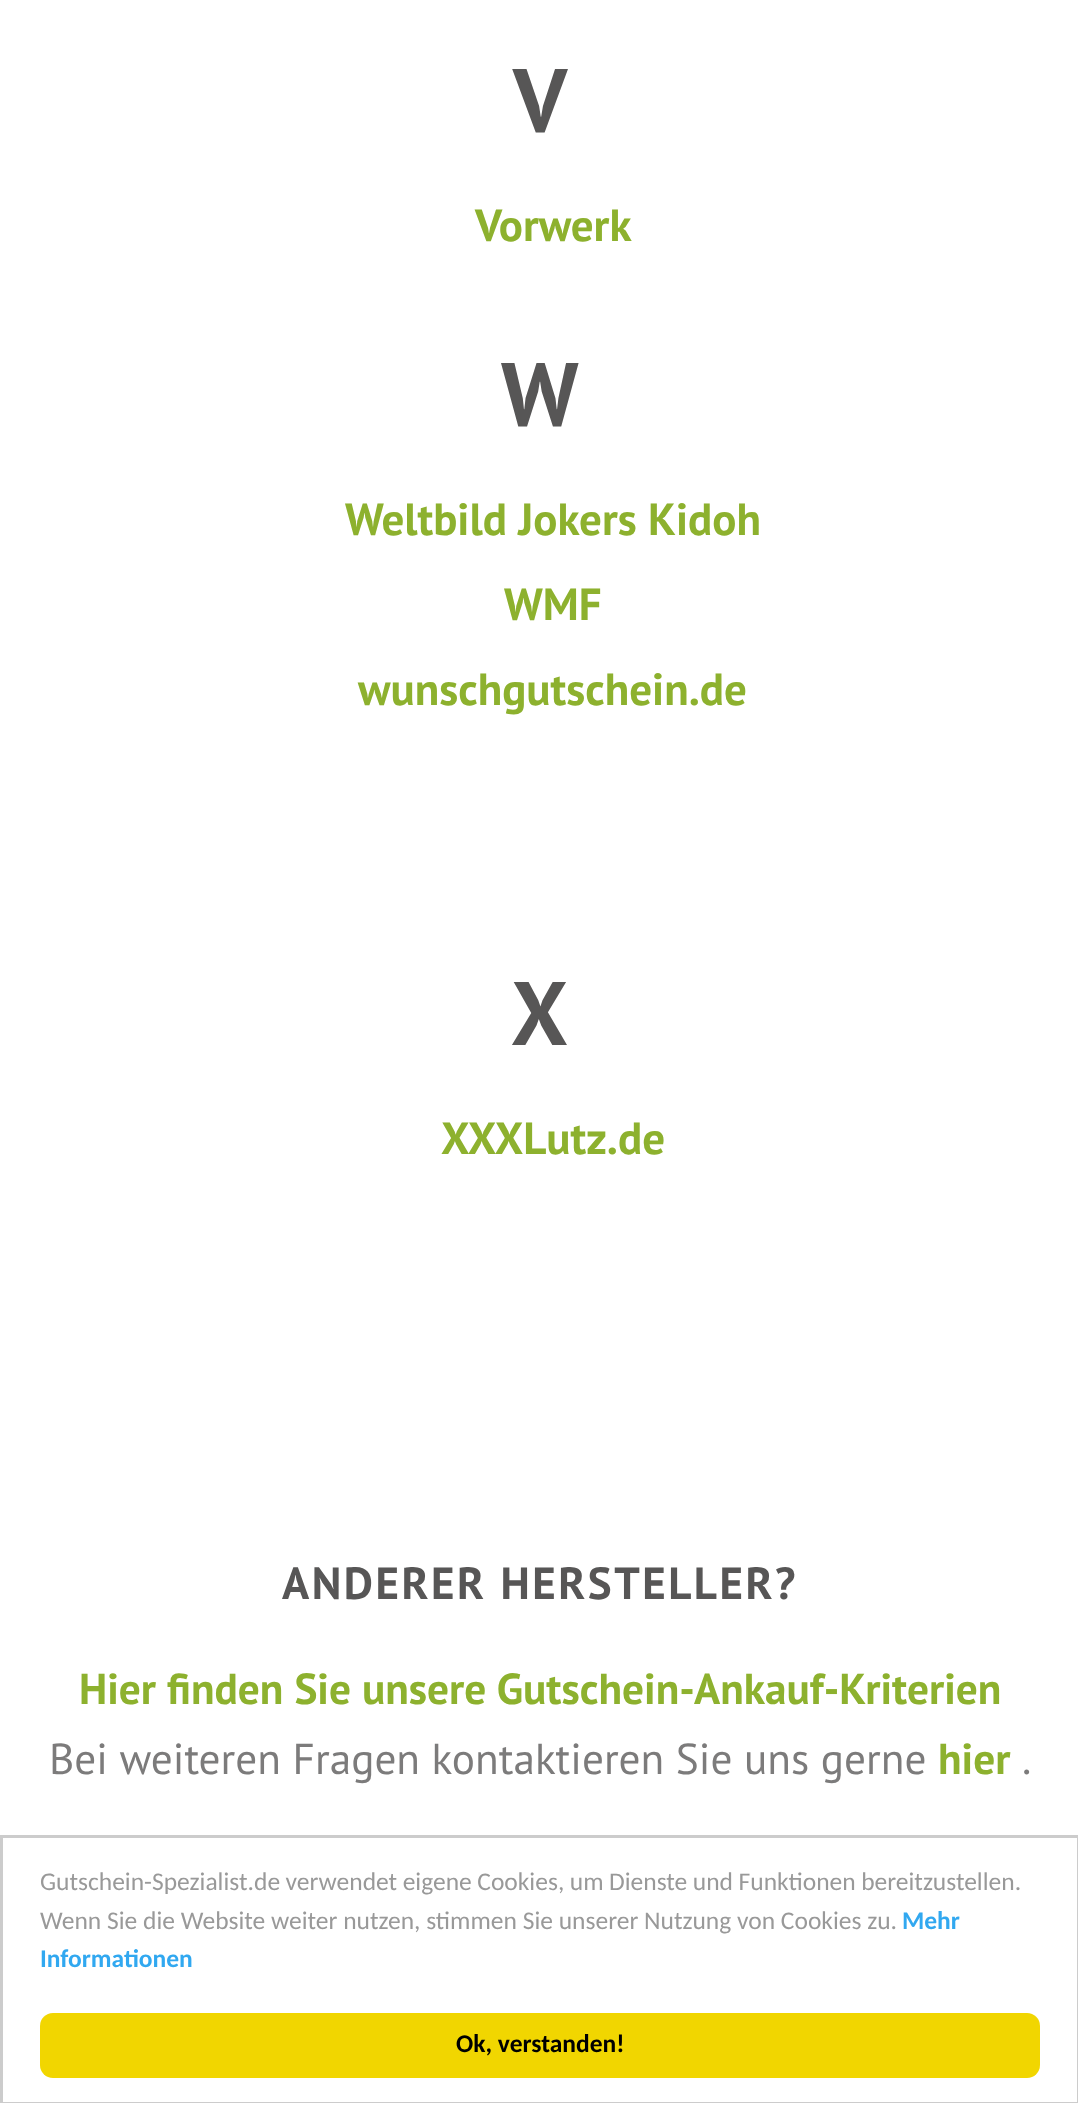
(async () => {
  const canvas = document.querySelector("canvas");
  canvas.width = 1078;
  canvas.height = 2103;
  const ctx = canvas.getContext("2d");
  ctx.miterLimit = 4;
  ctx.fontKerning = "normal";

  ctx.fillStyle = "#ffffff";
  ctx.fillRect(0, 0, 1078, 2103);
  ctx.strokeStyle = "#cccccc";
  ctx.lineWidth = 3;
  ctx.strokeRect(1.5, 1836.5, 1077, 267);
  ctx.fillStyle = "#f1d600";
  ctx.beginPath();
  ctx.roundRect(40, 2013, 1000, 65, 13);
  ctx.fill();
  ctx.font = "bold 90px PT Sans";
  ctx.fillStyle = "#575656";
  ctx.fillText("V", 513, 132);
  ctx.font = "bold 45px PT Sans";
  ctx.fillStyle = "#8db12e";
  ctx.fillText("Vorwerk", 475, 241);
  ctx.font = "bold 90px PT Sans";
  ctx.fillStyle = "#575656";
  ctx.fillText("W", 501, 426);
  ctx.font = "bold 45px PT Sans";
  ctx.fillStyle = "#8db12e";
  for (const [text, x, y] of [
    ["Weltbild Jokers Kidoh", 345, 535],
    ["WMF", 504, 620],
    ["wunschgutschein.de", 358, 705],
  ]) {
    ctx.fillText(text, x, y);
  }
  ctx.font = "bold 90px PT Sans";
  ctx.fillStyle = "#575656";
  ctx.fillText("X", 511, 1045);
  ctx.font = "bold 45px PT Sans";
  ctx.fillStyle = "#8db12e";
  ctx.fillText("XXXLutz.de", 441, 1154);
  ctx.letterSpacing = "2.5px";
  ctx.fillStyle = "#575656";
  ctx.fillText("ANDERER HERSTELLER?", 282, 1599);
  ctx.letterSpacing = "0px";
  ctx.font = "bold 43.3px PT Sans";
  ctx.fillStyle = "#8db12e";
  ctx.fillText("Hier finden Sie unsere Gutschein-Ankauf-Kriterien", 79, 1704);
  ctx.font = "43.3px PT Sans";
  ctx.fillStyle = "#7c7b7b";
  ctx.fillText("Bei weiteren Fragen kontaktieren Sie uns gerne", 49, 1774);
  ctx.font = "bold 43.3px PT Sans";
  ctx.fillStyle = "#8db12e";
  ctx.fillText("hier", 938, 1774);
  ctx.font = "43.3px PT Sans";
  ctx.fillStyle = "#7c7b7b";
  ctx.fillText(".", 1022, 1774);
  ctx.wordSpacing = "-0.25px";
  ctx.font = "25.5px Carlito";
  ctx.fillStyle = "#999999";
  ctx.fillText("Gutschein-Spezialist.de verwendet eigene Cookies, um Dienste und Funktionen bereitzustellen.", 40, 1890);
  ctx.wordSpacing = "0px";
  ctx.fillText("Wenn Sie die Website weiter nutzen, stimmen Sie unserer Nutzung von Cookies zu.", 40, 1929);
  ctx.font = "bold 25.5px Carlito";
  ctx.fillStyle = "#31a8f0";
  ctx.fillText("Mehr", 902, 1929);
  ctx.fillText("Informationen", 40, 1967);
  ctx.fillStyle = "#000000";
  ctx.fillText("Ok, verstanden!", 456, 2052);
})();
